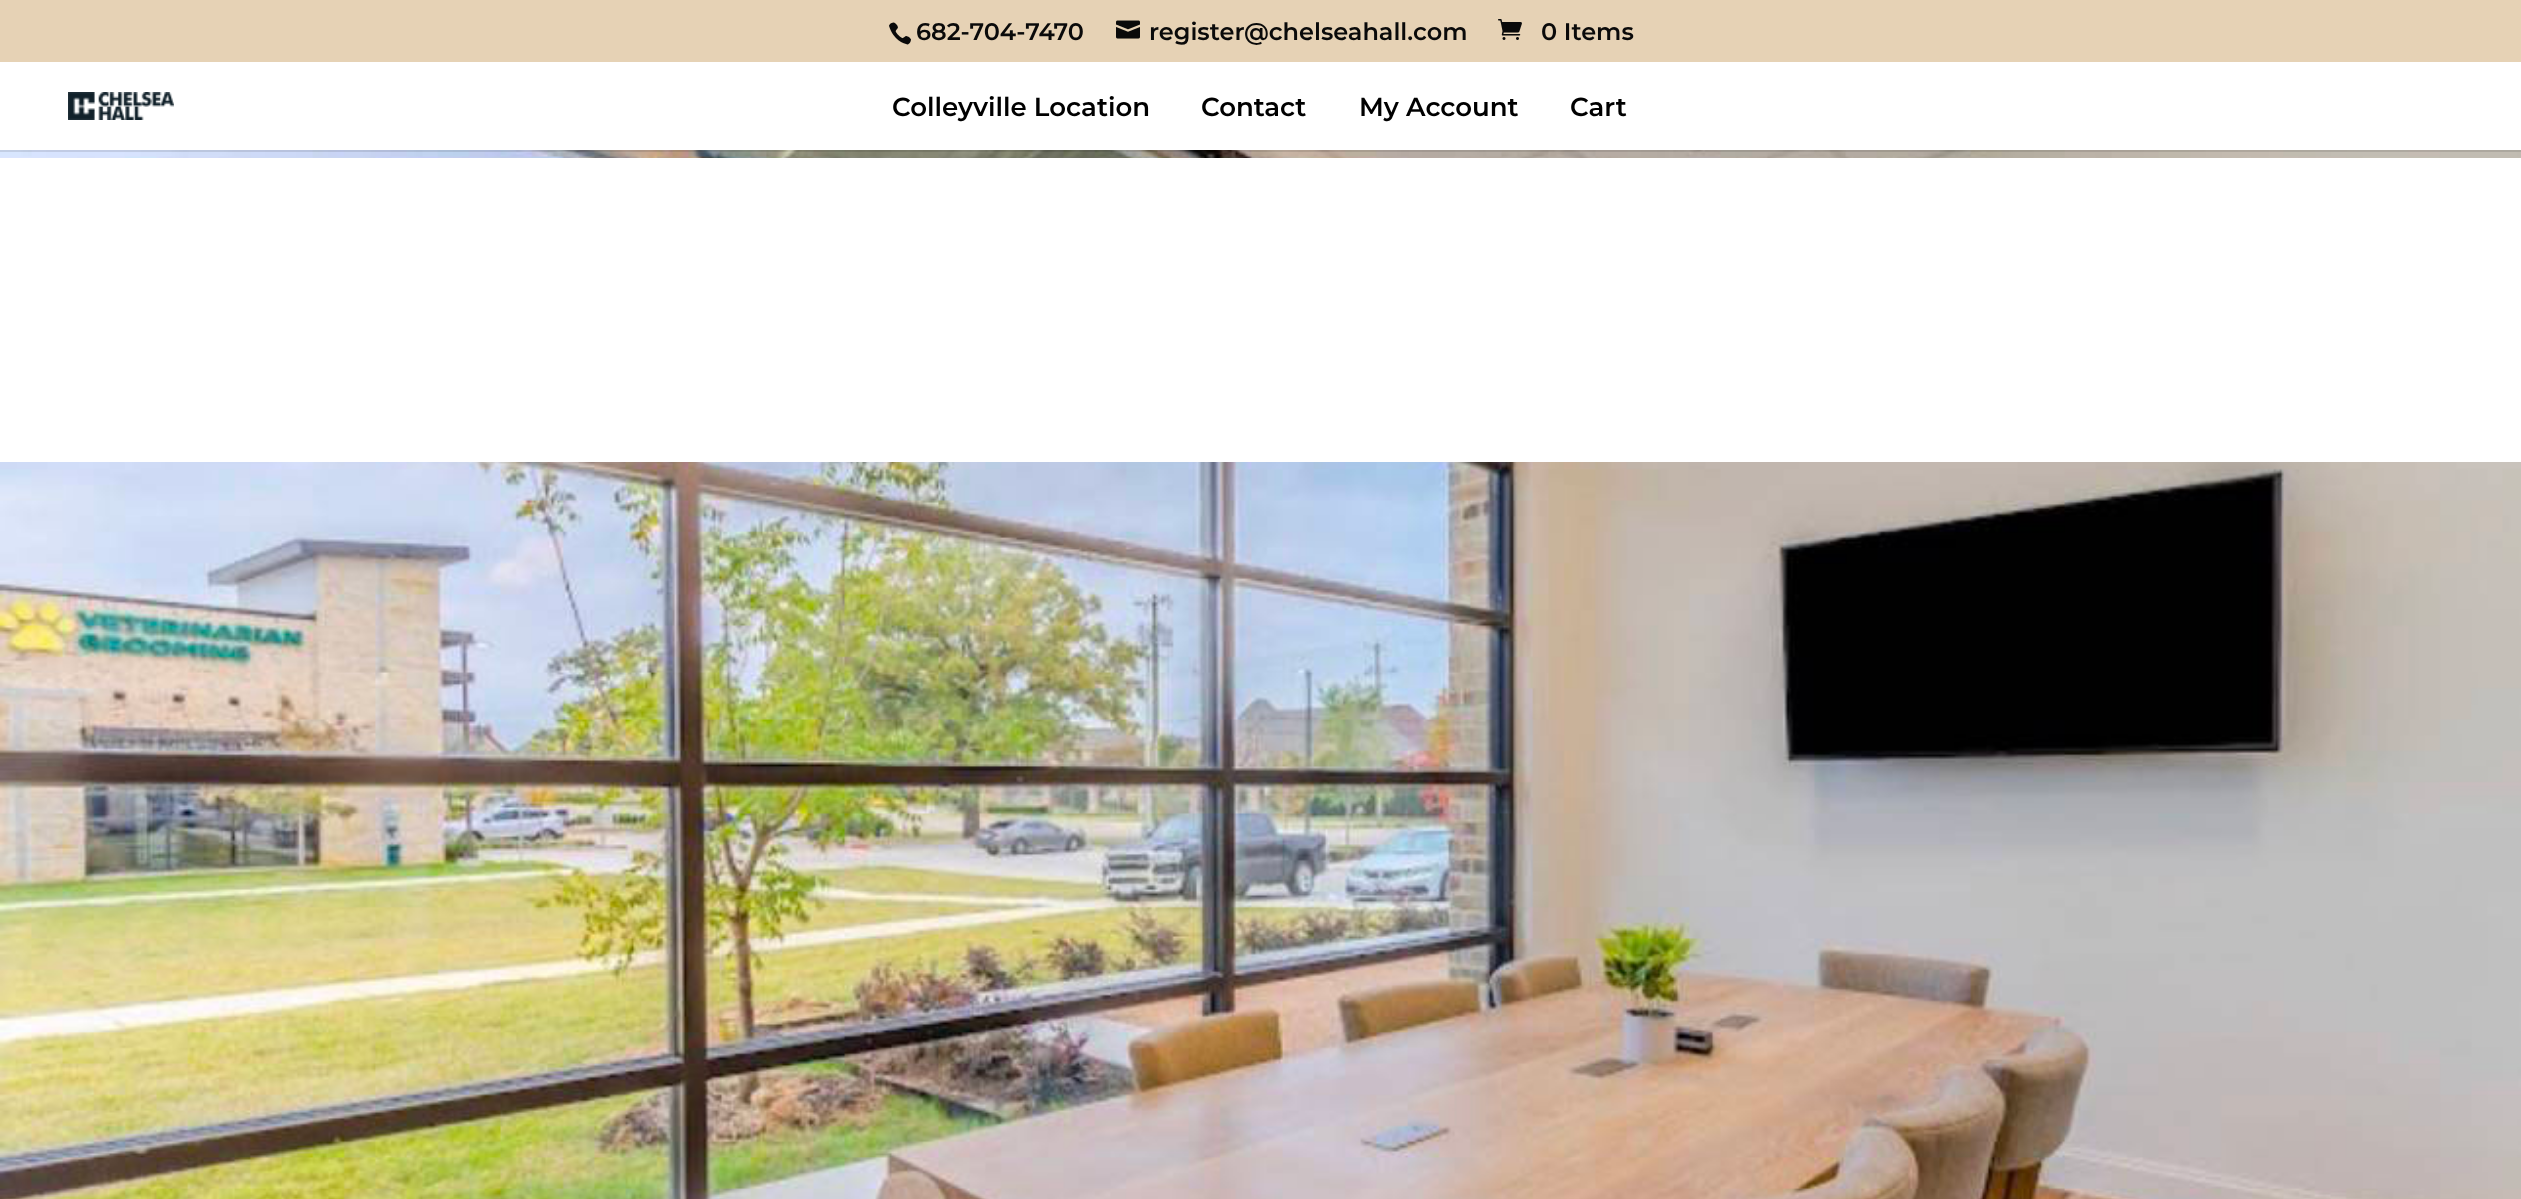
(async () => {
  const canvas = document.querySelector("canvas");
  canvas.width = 2521;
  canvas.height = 1199;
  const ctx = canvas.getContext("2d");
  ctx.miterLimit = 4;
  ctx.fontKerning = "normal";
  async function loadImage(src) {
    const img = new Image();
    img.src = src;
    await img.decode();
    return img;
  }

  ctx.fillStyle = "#ffffff";
  ctx.fillRect(0, 0, 2521, 1199);
  ctx.drawImage(await loadImage("img/1.png"), 0, 150, 2521, 1049);
  ctx.fillStyle = "#e6d2b5";
  ctx.fillRect(0, 0, 2521, 62);
  ctx.drawImage(await loadImage("img/2.png"), 889, 22, 22, 23);
  ctx.drawImage(await loadImage("img/3.png"), 1116, 20, 24, 19);
  ctx.drawImage(await loadImage("img/4.png"), 1498, 19, 24, 21);
  ctx.fillStyle = "rgba(0, 0, 0, 0.1)";
  ctx.fillRect(0, 150, 2521, 2);
  ctx.drawImage(await loadImage("img/5.png"), 68, 92, 106, 28);
  ctx.fillStyle = "#ffffff";
  ctx.fillRect(0, 158, 2521, 304);
  ctx.font = "100 24px Montserrat";
  ctx.fillStyle = "#0a0a0a";
  for (const [text, x, y] of [
    ["682-704-7470", 916, 40],
    ["register@chelseahall.com", 1149, 40],
    ["0 Items", 1541, 40],
  ]) {
    ctx.fillText(text, x, y);
  }
  ctx.font = "100 26px Montserrat";
  ctx.fillStyle = "#000000";
  for (const [text, x, y] of [
    ["Colleyville Location", 892, 116],
    ["Contact", 1201, 116],
    ["My Account", 1359, 116],
    ["Cart", 1570, 116],
  ]) {
    ctx.fillText(text, x, y);
  }
})();
